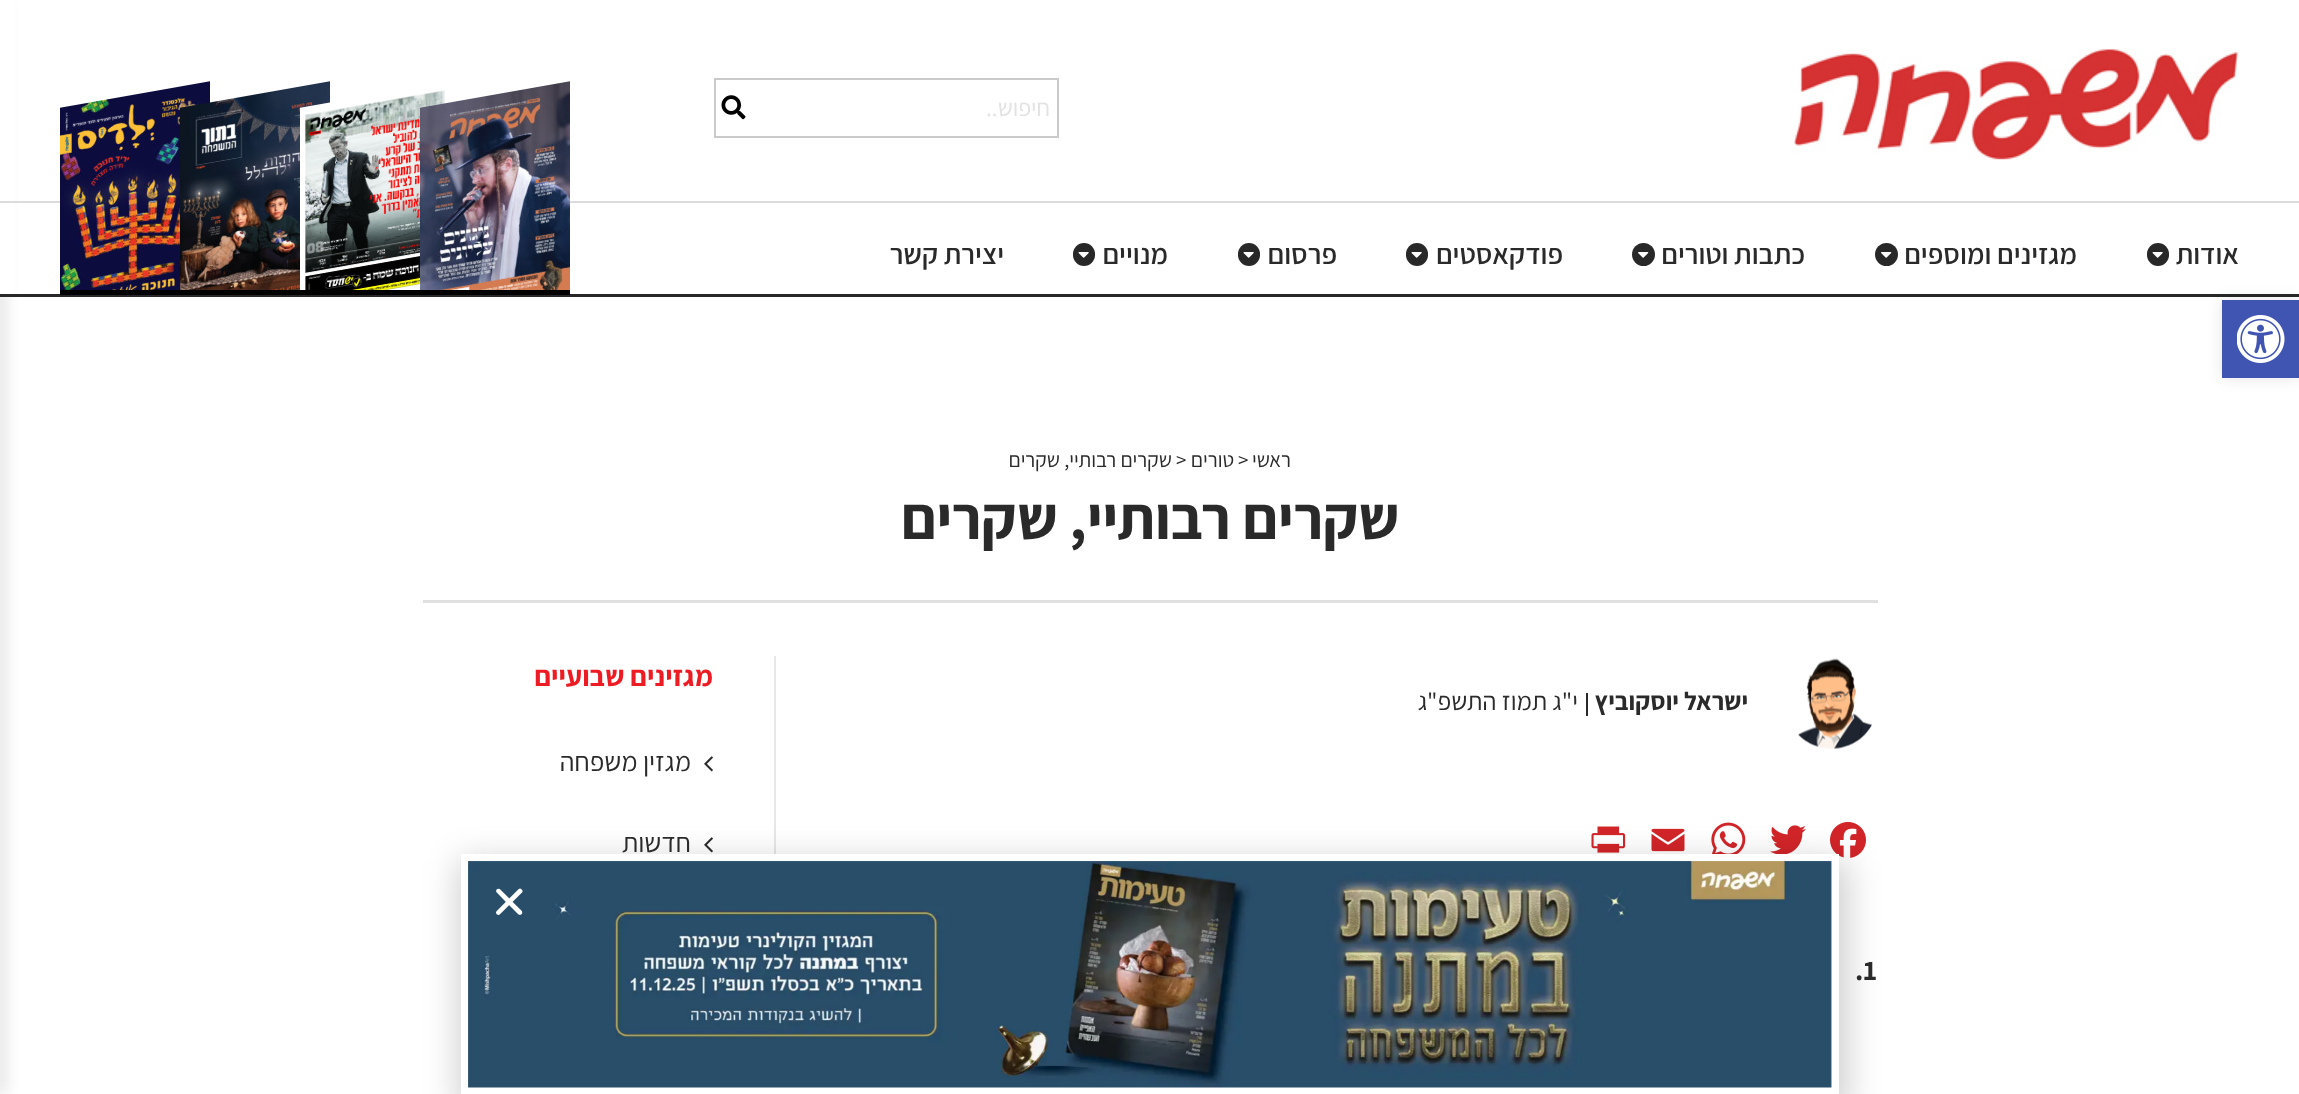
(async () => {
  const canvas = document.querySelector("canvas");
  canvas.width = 2299;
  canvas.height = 1094;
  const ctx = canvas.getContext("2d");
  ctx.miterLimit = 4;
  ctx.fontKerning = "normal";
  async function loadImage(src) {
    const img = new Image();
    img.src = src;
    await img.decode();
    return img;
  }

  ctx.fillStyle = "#ffffff";
  ctx.fillRect(0, 0, 2299, 1094);
  ctx.fillStyle = "rgba(10, 10, 10, 0.7)";
  ctx.filter = "blur(7.5px)";
  ctx.beginPath();
  ctx.rect(-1, 0, 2, 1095);
  ctx.fill();
  ctx.filter = "none";
  ctx.fillStyle = "#282828";
  ctx.fillRect(0, 294, 2299, 3);
  ctx.fillStyle = "rgba(0, 0, 0, 0.1)";
  ctx.filter = "blur(7.5px)";
  ctx.beginPath();
  ctx.rect(2222, 300, 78, 78);
  ctx.fill();
  ctx.filter = "none";
  ctx.fillStyle = "#4054b2";
  ctx.fillRect(2222, 300, 77, 78);
  ctx.drawImage(await loadImage("img/1.png"), 2237, 315, 48, 48);
  ctx.fillStyle = "#ffffff";
  ctx.fillRect(0, 0, 15, 294);
  ctx.fillStyle = "#dcdcdc";
  ctx.fillRect(0, 201, 2299, 2);
  ctx.drawImage(await loadImage("img/2.png"), 1790, 49, 449, 111);
  ctx.strokeStyle = "#cacaca";
  ctx.lineWidth = 2;
  ctx.strokeRect(715, 79, 343, 58);
  ctx.drawImage(await loadImage("img/3.png"), 721, 95, 25, 25);
  ctx.fillStyle = "#282828";
  ctx.beginPath();
  ctx.roundRect(2147, 243, 22, 23, 11);
  ctx.fill();
  ctx.drawImage(await loadImage("img/4.png"), 2152, 252, 11, 6);
  ctx.beginPath();
  ctx.arc(1886.5, 254.5, 11.5, 0, Math.PI * 2);
  ctx.fill();
  ctx.drawImage(await loadImage("img/5.png"), 1881, 252, 11, 6);
  ctx.beginPath();
  ctx.arc(1643.5, 254.5, 11.5, 0, Math.PI * 2);
  ctx.fill();
  ctx.drawImage(await loadImage("img/5.png"), 1638, 252, 11, 6);
  ctx.beginPath();
  ctx.roundRect(1406, 243, 22, 23, 11);
  ctx.fill();
  ctx.drawImage(await loadImage("img/4.png"), 1411, 252, 11, 6);
  ctx.beginPath();
  ctx.roundRect(1238, 243, 22, 23, 11);
  ctx.fill();
  ctx.drawImage(await loadImage("img/4.png"), 1243, 252, 11, 6);
  ctx.beginPath();
  ctx.roundRect(1073, 243, 22, 23, 11);
  ctx.fill();
  ctx.drawImage(await loadImage("img/4.png"), 1078, 252, 11, 6);
  ctx.fillStyle = "#000000";
  ctx.fillRect(60, 290, 510, 5);
  ctx.drawImage(await loadImage("img/9.png"), 60, 81, 150, 209);
  ctx.drawImage(await loadImage("img/8.png"), 180, 81, 150, 209);
  ctx.drawImage(await loadImage("img/7.png"), 300, 90, 150, 200);
  ctx.drawImage(await loadImage("img/6.png"), 420, 81, 150, 209);
  ctx.fillStyle = "#e0e0e0";
  ctx.fillRect(423, 600, 1455, 3);
  ctx.drawImage(await loadImage("img/10.png"), 1798, 658, 74, 91);
  ctx.fillStyle = "#2a2a2a";
  ctx.fillRect(1586, 693, 2, 23);
  ctx.drawImage(await loadImage("img/11.png"), 1830, 822, 36, 36);
  ctx.drawImage(await loadImage("img/12.png"), 1770, 825, 36, 29);
  ctx.drawImage(await loadImage("img/13.png"), 1711, 822, 35, 32);
  ctx.drawImage(await loadImage("img/14.png"), 1651, 828, 34, 24);
  ctx.drawImage(await loadImage("img/15.png"), 1591, 826, 35, 27);
  ctx.fillStyle = "#e7e7e7";
  ctx.fillRect(774, 656, 2, 198);
  ctx.drawImage(await loadImage("img/16.png"), 704, 756, 9, 16);
  ctx.drawImage(await loadImage("img/16.png"), 704, 837, 9, 16);
  ctx.fillStyle = "rgba(0, 0, 0, 0.2)";
  ctx.filter = "blur(17px)";
  ctx.beginPath();
  ctx.rect(459, 861, 1388, 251);
  ctx.fill();
  ctx.filter = "none";
  ctx.fillStyle = "#ffffff";
  ctx.fillRect(461, 854, 1378, 240);
  ctx.drawImage(await loadImage("img/17.png"), 468, 861, 1364, 227);
  ctx.drawImage(await loadImage("img/18.png"), 496, 888, 27, 27);
  ctx.direction = "rtl";
  ctx.font = "24px Assistant";
  ctx.fillStyle = "#e2e2e2";
  ctx.fillText("חיפוש..", 1050, 116);
  ctx.font = "600 28.5px Assistant";
  ctx.fillStyle = "#2a2a2a";
  for (const [text, x, y] of [
    ["אודות", 2239, 264],
    ["מגזינים ומוספים", 2077, 264],
    ["כתבות וטורים", 1805, 264],
    ["פודקאסטים", 1563, 264],
    ["פרסום", 1337, 264],
    ["מנויים", 1168, 264],
    ["יצירת קשר", 1004, 264],
  ]) {
    ctx.fillText(text, x, y);
  }
  ctx.font = "21px Assistant";
  ctx.fillText("ראשי", 1291, 467);
  ctx.direction = "ltr";
  ctx.fillText(">", 1238, 467);
  ctx.direction = "rtl";
  ctx.fillText("טורים", 1234, 467);
  ctx.direction = "ltr";
  ctx.fillText(">", 1176, 467);
  ctx.direction = "rtl";
  ctx.fillText("שקרים רבותיי, שקרים", 1172, 467);
  ctx.font = "bold 60px Assistant";
  ctx.fillText("שקרים רבותיי, שקרים", 1399, 539);
  ctx.font = "bold 25.5px Assistant";
  ctx.fillText("ישראל יוסקוביץ", 1748, 710);
  ctx.font = "25.5px Assistant";
  ctx.fillText("י\"ג תמוז התשפ\"ג", 1578, 710);
  ctx.direction = "ltr";
  ctx.font = "bold 28.5px Assistant";
  ctx.fillText(".1", 1855, 980);
  ctx.direction = "rtl";
  ctx.fillStyle = "#ed1b24";
  ctx.fillText("מגזינים שבועיים", 713, 686);
  ctx.font = "27px Assistant";
  ctx.fillStyle = "#2a2a2a";
  ctx.fillText("מגזין משפחה", 691, 771);
  ctx.fillText("חדשות", 691, 852);
})();
